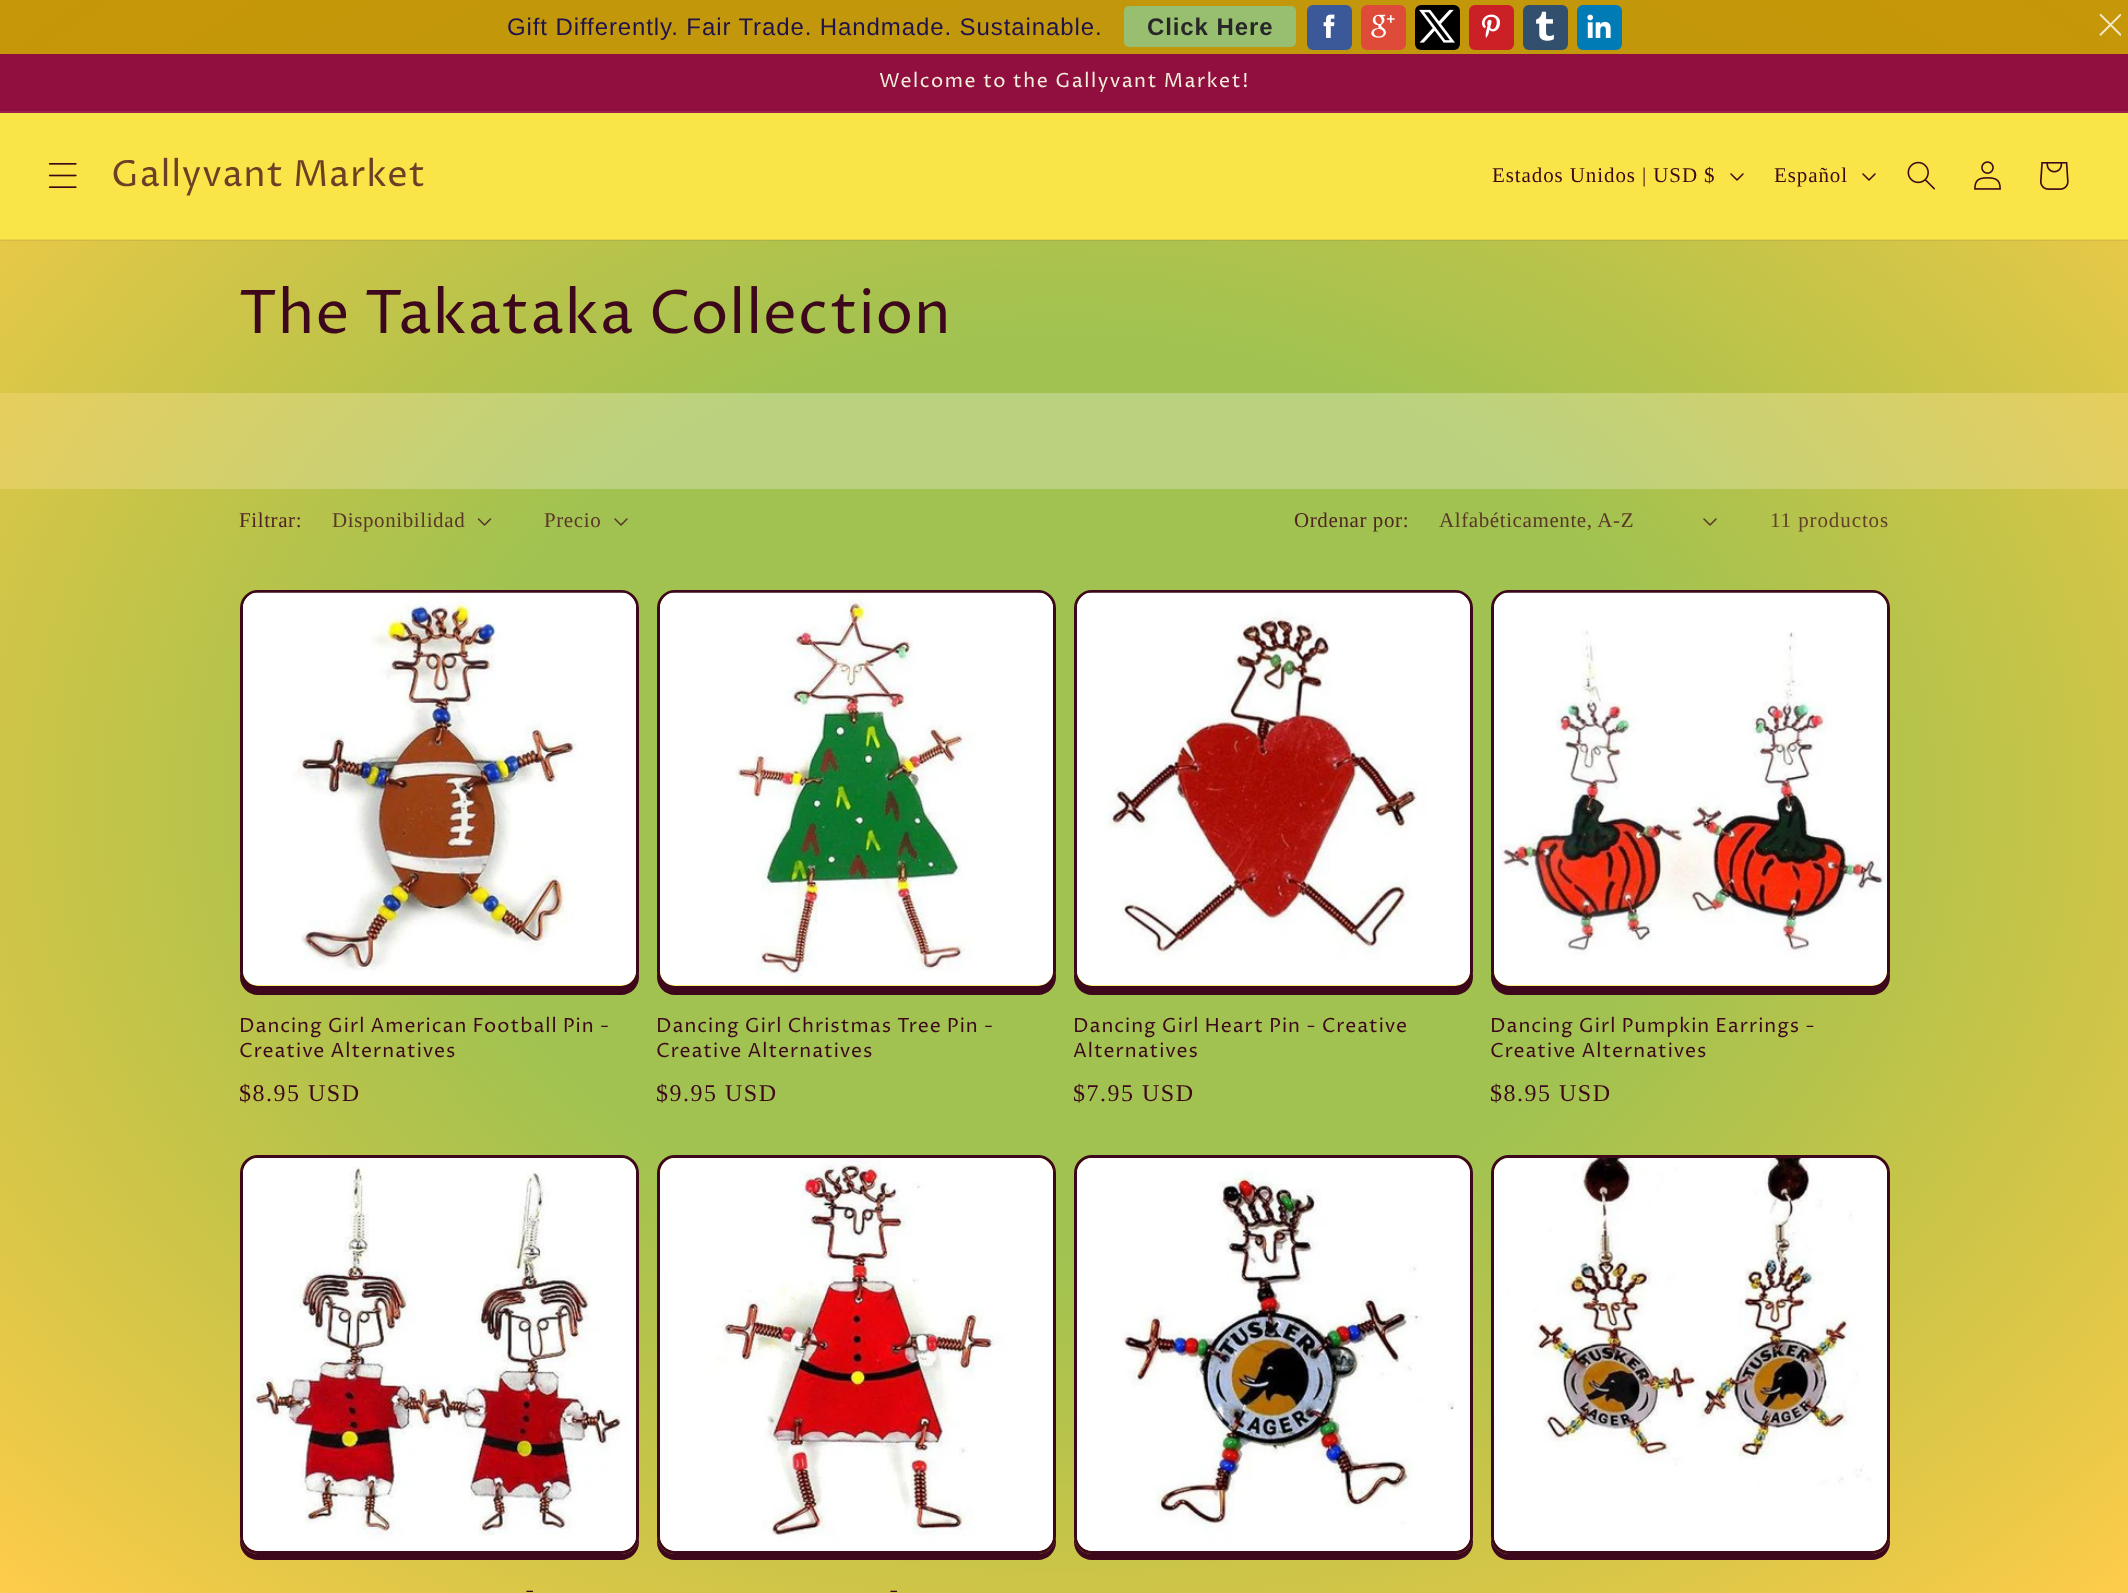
(async () => {
  const canvas = document.querySelector("canvas");
  canvas.width = 2128;
  canvas.height = 1593;
  const ctx = canvas.getContext("2d");
  ctx.miterLimit = 4;
  ctx.fontKerning = "normal";
  async function loadImage(src) {
    const img = new Image();
    img.src = src;
    await img.decode();
    return img;
  }
  let gradient, path;

  ctx.fillStyle = "#ffffff";
  ctx.fillRect(0, 0, 2128, 1593);
  gradient = ctx.createRadialGradient(1064, 1065.26, 0, 1064, 1065.26, 1505);
  gradient.addColorStop(0.41, "#bad27f");
  gradient.addColorStop(1, "#ffcc4b");
  ctx.fillStyle = gradient;
  ctx.beginPath();
  ctx.rect(0, 240, 2128, 1353);
  ctx.save();
  ctx.clip();
  ctx.scale(1, 1126 / 1505);
  ctx.fillRect(0, 0, 2128, 2130);
  ctx.restore();
  gradient = ctx.createRadialGradient(1064, 1065.26, 0, 1064, 1065.26, 1505);
  gradient.addColorStop(0.41, "#be970e");
  gradient.addColorStop(1, "#c69708");
  ctx.fillStyle = gradient;
  ctx.beginPath();
  ctx.rect(0, 0, 2128, 54);
  ctx.save();
  ctx.clip();
  ctx.scale(1, 1126 / 1505);
  ctx.fillRect(0, 0, 2128, 2130);
  ctx.restore();
  ctx.fillStyle = "rgba(147, 196, 125, 0.89)";
  ctx.beginPath();
  ctx.roundRect(1124, 6, 172, 41, 5);
  ctx.fill();
  ctx.fillStyle = "#3b5999";
  ctx.beginPath();
  ctx.roundRect(1307, 5, 45, 45, 6);
  ctx.fill();
  ctx.drawImage(await loadImage("img/1.png"), 1323, 14, 12, 24);
  ctx.fillStyle = "#de4b39";
  ctx.beginPath();
  ctx.roundRect(1361, 5, 45, 45, 6);
  ctx.fill();
  ctx.drawImage(await loadImage("img/2.png"), 1371, 14, 24, 24);
  ctx.fillStyle = "#000000";
  ctx.beginPath();
  ctx.roundRect(1415, 5, 45, 45, 6);
  ctx.fill();
  ctx.drawImage(await loadImage("img/3.png"), 1419, 9, 36, 34);
  ctx.fillStyle = "#cb2026";
  ctx.beginPath();
  ctx.roundRect(1469, 5, 45, 45, 6);
  ctx.fill();
  ctx.drawImage(await loadImage("img/4.png"), 1482, 14, 18, 24);
  ctx.fillStyle = "#32506d";
  ctx.beginPath();
  ctx.roundRect(1523, 5, 45, 45, 6);
  ctx.fill();
  ctx.drawImage(await loadImage("img/5.png"), 1536, 11, 18, 30);
  ctx.fillStyle = "#007bb6";
  ctx.beginPath();
  ctx.roundRect(1577, 5, 45, 45, 6);
  ctx.fill();
  ctx.drawImage(await loadImage("img/6.png"), 1587, 14, 24, 24);
  ctx.drawImage(await loadImage("img/7.png"), 2099, 14, 22, 22);
  for (const [x, y, w, h, color] of [
    [0, 54, 2128, 57, "#910f3f"],
    [0, 111, 2128, 2, "#99214c"],
    [0, 113, 2128, 127, "#f9e547"],
  ]) {
    ctx.fillStyle = color;
    ctx.fillRect(x, y, w, h);
  }
  gradient = ctx.createRadialGradient(1064, 1065.26, 0, 1064, 1065.26, 1505);
  gradient.addColorStop(0.41, "rgba(148, 186, 57, 0.65)");
  gradient.addColorStop(1, "#ffcc4b");
  ctx.fillStyle = gradient;
  ctx.beginPath();
  ctx.rect(0, 240, 2128, 153);
  ctx.save();
  ctx.clip();
  ctx.scale(1, 1126 / 1505);
  ctx.fillRect(0, 0, 2128, 2130);
  ctx.restore();
  ctx.fillStyle = "rgba(61, 8, 27, 0.08)";
  ctx.fillRect(0, 239, 2128, 2);
  ctx.drawImage(await loadImage("img/8.png"), 48, 163, 29, 25);
  ctx.drawImage(await loadImage("img/9.png"), 1730, 173, 14, 8);
  ctx.drawImage(await loadImage("img/9.png"), 1862, 173, 14, 8);
  ctx.drawImage(await loadImage("img/10.png"), 1907, 161, 28, 29);
  ctx.drawImage(await loadImage("img/11.png"), 1974, 161, 27, 29);
  ctx.drawImage(await loadImage("img/12.png"), 2040, 162, 29, 28);
  gradient = ctx.createRadialGradient(1064, 1065.26, 0, 1064, 1065.26, 1505);
  gradient.addColorStop(0.41, "rgba(148, 186, 57, 0.65)");
  gradient.addColorStop(1, "#ffcc4b");
  ctx.fillStyle = gradient;
  ctx.beginPath();
  ctx.rect(0, 489, 2128, 1104);
  ctx.save();
  ctx.clip();
  ctx.scale(1, 1126 / 1505);
  ctx.fillRect(0, 0, 2128, 2130);
  ctx.restore();
  ctx.drawImage(await loadImage("img/13.png"), 477, 518, 15, 8);
  ctx.drawImage(await loadImage("img/14.png"), 614, 518, 14, 8);
  ctx.drawImage(await loadImage("img/15.png"), 1703, 518, 14, 8);
  ctx.fillStyle = "#f9e547";
  ctx.beginPath();
  ctx.roundRect(241.5, 591.5, 396, 396, 16.5);
  ctx.fill();
  ctx.strokeStyle = "#3d081b";
  ctx.lineWidth = 3;
  ctx.stroke();
  ctx.fillStyle = "#3d081b";
  path = new Path2D("M240 970V977C240 987 248 995 258 995H621C631 995 639 987 639 977V970C639 980 631 988 621 988H258C248 988 240 980 240 970Z");
  ctx.fill(path);
  ctx.drawImage(await loadImage("img/16.png"), 243, 592, 393, 394);
  ctx.fillStyle = "#f9e547";
  ctx.beginPath();
  ctx.roundRect(658.5, 591.5, 396, 396, 16.5);
  ctx.fill();
  ctx.stroke();
  ctx.fillStyle = "#3d081b";
  path = new Path2D("M657 970V977C657 987 665 995 675 995H1038C1048 995 1056 987 1056 977V970C1056 980 1048 988 1038 988H675C665 988 657 980 657 970Z");
  ctx.fill(path);
  ctx.drawImage(await loadImage("img/17.png"), 660, 592, 393, 394);
  ctx.fillStyle = "#f9e547";
  ctx.beginPath();
  ctx.roundRect(1075.5, 591.5, 396, 396, 16.5);
  ctx.fill();
  ctx.stroke();
  ctx.fillStyle = "#3d081b";
  path = new Path2D("M1074 970V977C1074 987 1082 995 1092 995H1455C1465 995 1473 987 1473 977V970C1473 980 1465 988 1455 988H1092C1082 988 1074 980 1074 970Z");
  ctx.fill(path);
  ctx.drawImage(await loadImage("img/18.png"), 1077, 592, 393, 394);
  ctx.fillStyle = "#f9e547";
  ctx.beginPath();
  ctx.roundRect(1492.5, 591.5, 396, 396, 16.5);
  ctx.fill();
  ctx.stroke();
  ctx.fillStyle = "#3d081b";
  path = new Path2D("M1491 970V977C1491 987 1499 995 1509 995H1872C1882 995 1890 987 1890 977V970C1890 980 1882 988 1872 988H1509C1499 988 1491 980 1491 970Z");
  ctx.fill(path);
  ctx.drawImage(await loadImage("img/19.png"), 1494, 592, 393, 394);
  ctx.fillStyle = "#f9e547";
  ctx.beginPath();
  ctx.roundRect(1075.5, 1156.5, 396, 396, 16.5);
  ctx.fill();
  ctx.stroke();
  ctx.fillStyle = "#3d081b";
  path = new Path2D("M1074 1536V1542C1074 1552 1082 1560 1092 1560H1455C1465 1560 1473 1552 1473 1542V1536C1473 1546 1465 1554 1455 1554H1092C1082 1554 1074 1546 1074 1536Z");
  ctx.fill(path);
  ctx.drawImage(await loadImage("img/20.png"), 1077, 1158, 393, 393);
  ctx.fillStyle = "#f9e547";
  ctx.beginPath();
  ctx.roundRect(1492.5, 1156.5, 396, 396, 16.5);
  ctx.fill();
  ctx.stroke();
  ctx.fillStyle = "#3d081b";
  path = new Path2D("M1491 1536V1542C1491 1552 1499 1560 1509 1560H1872C1882 1560 1890 1552 1890 1542V1536C1890 1546 1882 1554 1872 1554H1509C1499 1554 1491 1546 1491 1536Z");
  ctx.fill(path);
  ctx.drawImage(await loadImage("img/21.png"), 1494, 1158, 393, 393);
  ctx.fillStyle = "#f9e547";
  ctx.beginPath();
  ctx.roundRect(241.5, 1156.5, 396, 396, 16.5);
  ctx.fill();
  ctx.stroke();
  ctx.fillStyle = "#3d081b";
  path = new Path2D("M240 1536V1542C240 1552 248 1560 258 1560H621C631 1560 639 1552 639 1542V1536C639 1546 631 1554 621 1554H258C248 1554 240 1546 240 1536Z");
  ctx.fill(path);
  ctx.drawImage(await loadImage("img/22.png"), 243, 1158, 393, 393);
  ctx.fillStyle = "#f9e547";
  ctx.beginPath();
  ctx.roundRect(658.5, 1156.5, 396, 396, 16.5);
  ctx.fill();
  ctx.stroke();
  ctx.fillStyle = "#3d081b";
  path = new Path2D("M657 1536V1542C657 1552 665 1560 675 1560H1038C1048 1560 1056 1552 1056 1542V1536C1056 1546 1048 1554 1038 1554H675C665 1554 657 1546 657 1536Z");
  ctx.fill(path);
  ctx.drawImage(await loadImage("img/23.png"), 660, 1158, 393, 393);
  ctx.letterSpacing = "0.9px";
  ctx.font = "24px Liberation Sans";
  ctx.fillStyle = "#20124d";
  ctx.fillText("Gift Differently. Fair Trade. Handmade. Sustainable.", 507, 35);
  ctx.font = "bold 24px Liberation Sans";
  ctx.fillStyle = "#272727";
  ctx.fillText("Click Here", 1147, 35);
  ctx.letterSpacing = "1.5px";
  ctx.font = "19.5px Proza Libre";
  ctx.fillStyle = "#f2efdd";
  ctx.fillText("Welcome to the Gallyvant Market!", 879, 87);
  ctx.letterSpacing = "0.9px";
  ctx.font = "36px Proza Libre";
  ctx.fillStyle = "#6c3f26";
  ctx.fillText("Gallyvant Market", 111, 186);
  ctx.font = "21px Liberation Serif";
  ctx.fillStyle = "#3d081b";
  ctx.fillText("Estados Unidos | USD $", 1492, 182);
  ctx.fillText("Español", 1774, 182);
  ctx.font = "60px Proza Libre";
  ctx.fillText("The Takataka Collection", 239, 333);
  ctx.letterSpacing = "0.6px";
  ctx.font = "21px Liberation Serif";
  ctx.fillStyle = "#502422";
  ctx.fillText("Filtrar:", 239, 527);
  ctx.fillStyle = "#5a3728";
  ctx.fillText("Disponibilidad", 332, 527);
  ctx.fillText("Precio", 544, 527);
  ctx.fillStyle = "#502422";
  ctx.fillText("Ordenar por:", 1294, 527);
  ctx.fillStyle = "#5a3728";
  ctx.fillText("Alfabéticamente, A-Z", 1439, 527);
  ctx.letterSpacing = "0.9px";
  ctx.fillStyle = "#624029";
  ctx.fillText("11 productos", 1770, 527);
  ctx.font = "19.5px Proza Libre";
  ctx.fillStyle = "#3d081b";
  ctx.fillText("Dancing Girl American Football Pin -", 239, 1032);
  ctx.fillText("Creative Alternatives", 239, 1057);
  ctx.letterSpacing = "1.5px";
  ctx.font = "24px Liberation Serif";
  ctx.fillText("$8.95 USD", 239, 1101);
  ctx.letterSpacing = "0.9px";
  ctx.font = "19.5px Proza Libre";
  ctx.fillText("Dancing Girl Christmas Tree Pin -", 656, 1032);
  ctx.fillText("Creative Alternatives", 656, 1057);
  ctx.letterSpacing = "1.5px";
  ctx.font = "24px Liberation Serif";
  ctx.fillText("$9.95 USD", 656, 1101);
  ctx.letterSpacing = "0.9px";
  ctx.font = "19.5px Proza Libre";
  ctx.fillText("Dancing Girl Heart Pin - Creative", 1073, 1032);
  ctx.fillText("Alternatives", 1073, 1057);
  ctx.letterSpacing = "1.5px";
  ctx.font = "24px Liberation Serif";
  ctx.fillText("$7.95 USD", 1073, 1101);
  ctx.letterSpacing = "0.9px";
  ctx.font = "19.5px Proza Libre";
  ctx.fillText("Dancing Girl Pumpkin Earrings -", 1490, 1032);
  ctx.fillText("Creative Alternatives", 1490, 1057);
  ctx.letterSpacing = "1.5px";
  ctx.font = "24px Liberation Serif";
  ctx.fillText("$8.95 USD", 1490, 1101);
  ctx.letterSpacing = "0.9px";
  ctx.font = "19.5px Proza Libre";
  ctx.fillText("-", 525, 1597);
  ctx.fillText("-", 889, 1597);
})();
